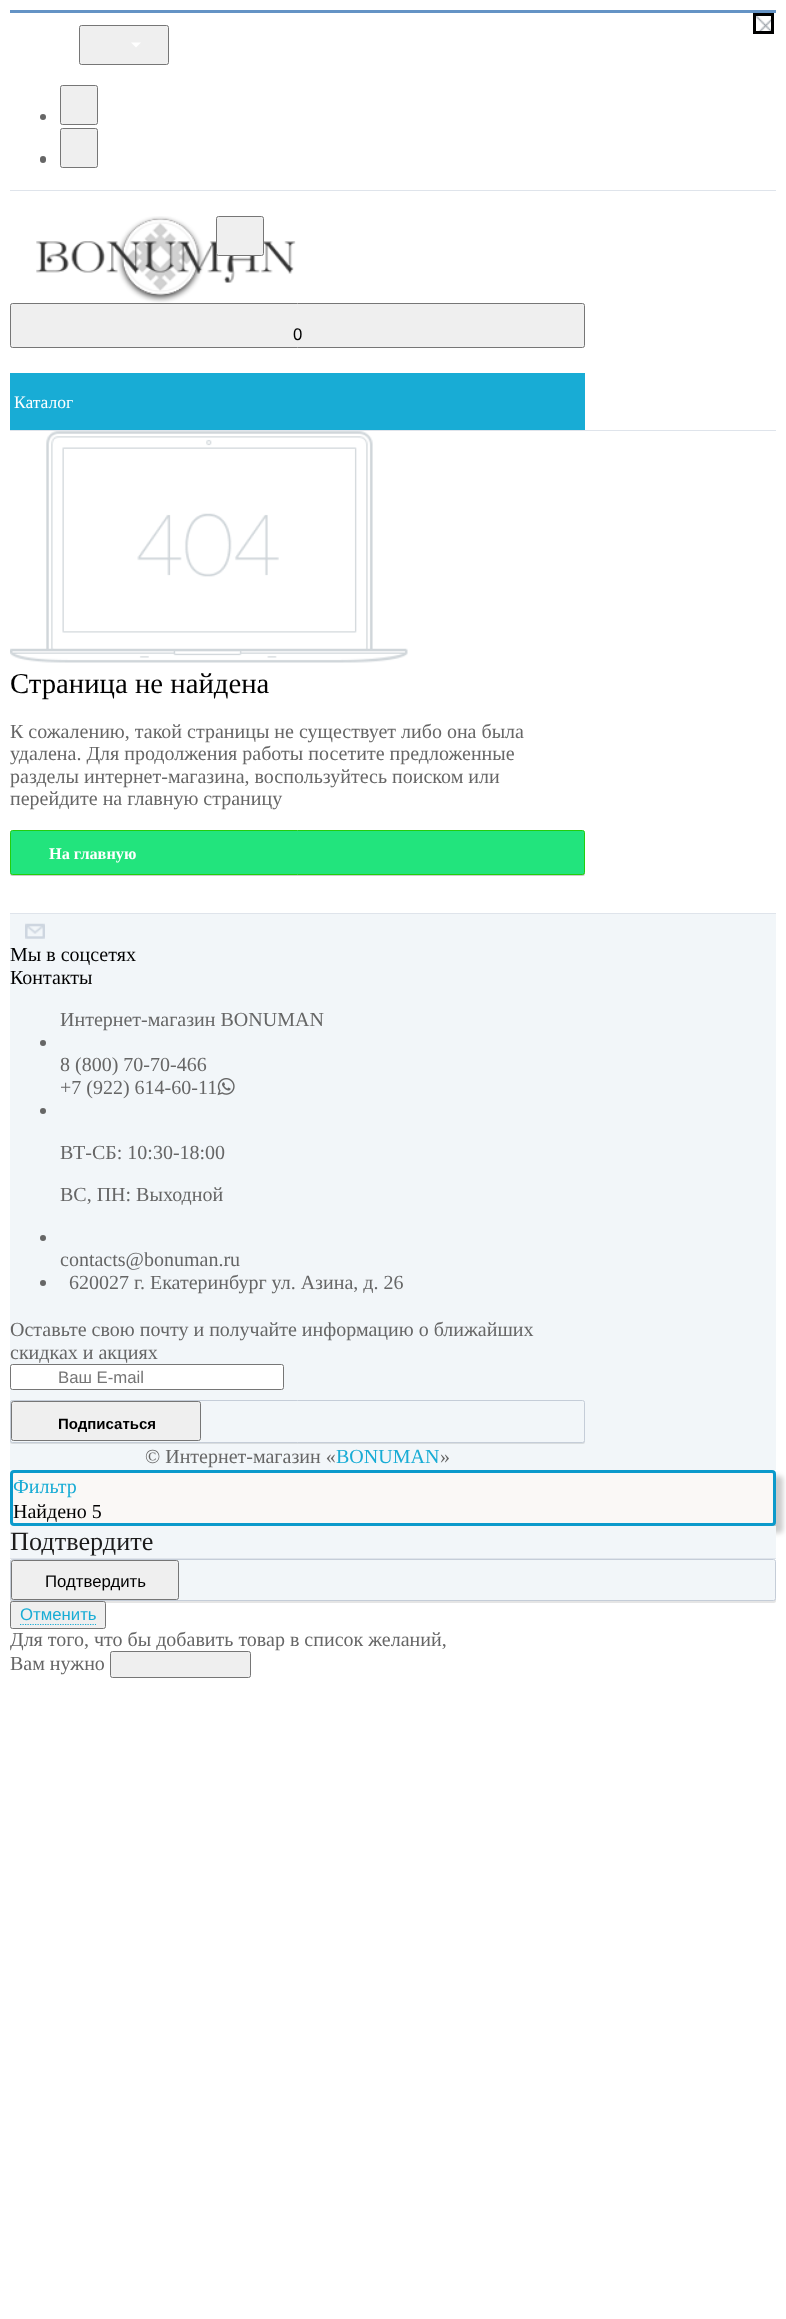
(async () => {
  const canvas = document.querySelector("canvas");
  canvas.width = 786;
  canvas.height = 2319;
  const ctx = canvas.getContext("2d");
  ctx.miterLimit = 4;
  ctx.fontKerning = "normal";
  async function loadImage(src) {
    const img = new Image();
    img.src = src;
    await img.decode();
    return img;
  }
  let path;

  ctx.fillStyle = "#ffffff";
  ctx.fillRect(0, 0, 786, 2319);
  for (const [x, y, w, h, color] of [
    [10, 10, 766, 3, "#6493c5"],
    [10, 430, 766, 1, "#dfe4eb"],
    [10, 190, 766, 1, "#dfe4eb"],
  ]) {
    ctx.fillStyle = color;
    ctx.fillRect(x, y, w, h);
  }
  ctx.fillStyle = "#efefef";
  ctx.beginPath();
  ctx.roundRect(79.5, 25.5, 89, 39, 2);
  ctx.fill();
  ctx.strokeStyle = "#767676";
  ctx.stroke();
  ctx.fillStyle = "#ffffff";
  path = new Path2D("M131 42.5H141L136 47.5Z");
  ctx.fill(path);
  ctx.fillStyle = "#666666";
  ctx.beginPath();
  ctx.arc(43, 117, 3, 0, Math.PI * 2);
  ctx.fill();
  ctx.fillStyle = "#efefef";
  ctx.beginPath();
  ctx.roundRect(60.5, 85.5, 37, 39, 2);
  ctx.fill();
  ctx.stroke();
  ctx.fillStyle = "#666666";
  ctx.beginPath();
  ctx.roundRect(40, 156, 6, 7, 3);
  ctx.fill();
  ctx.fillStyle = "#efefef";
  ctx.beginPath();
  ctx.roundRect(60.5, 128.5, 37, 39, 2);
  ctx.fill();
  ctx.stroke();
  ctx.drawImage(await loadImage("img/1.png"), 36, 216, 260, 87);
  ctx.beginPath();
  ctx.roundRect(216.5, 216.5, 47, 39, 2);
  ctx.fill();
  ctx.stroke();
  ctx.beginPath();
  ctx.roundRect(10.5, 303.5, 574, 44, 2);
  ctx.fill();
  ctx.stroke();
  ctx.fillStyle = "#18acd5";
  ctx.fillRect(10, 373, 575, 57);
  ctx.drawImage(await loadImage("img/2.png"), 10, 431, 398, 232);
  ctx.fillStyle = "rgba(0, 0, 0, 0.2)";
  ctx.filter = "blur(0.5px)";
  ctx.beginPath();
  ctx.roundRect(10, 831, 575, 45, 2.5);
  ctx.fill();
  ctx.filter = "none";
  ctx.fillStyle = "#22e47d";
  ctx.beginPath();
  ctx.roundRect(10.5, 830.5, 574, 44, 2);
  ctx.fill();
  ctx.strokeStyle = "#22cd0e";
  ctx.stroke();
  ctx.fillStyle = "rgba(0, 0, 0, 0.2)";
  ctx.filter = "blur(2.5px)";
  ctx.beginPath();
  ctx.roundRect(16, 1476, 767, 57, 4);
  ctx.fill();
  ctx.filter = "none";
  ctx.fillStyle = "#f2f6f9";
  ctx.fillRect(10, 914, 766, 556);
  ctx.fillStyle = "#dfe4eb";
  ctx.fillRect(10, 913, 766, 1);
  ctx.fillStyle = "#666666";
  ctx.beginPath();
  ctx.arc(43, 1043, 3, 0, Math.PI * 2);
  ctx.fill();
  ctx.drawImage(await loadImage("img/3.png"), 217, 1078, 18, 18);
  ctx.beginPath();
  ctx.arc(43, 1111, 3, 0, Math.PI * 2);
  ctx.fill();
  ctx.beginPath();
  ctx.arc(43, 1238, 3, 0, Math.PI * 2);
  ctx.fill();
  ctx.beginPath();
  ctx.arc(43, 1283, 3, 0, Math.PI * 2);
  ctx.fill();
  ctx.drawImage(await loadImage("img/4.png"), 25, 923, 20, 16);
  ctx.fillStyle = "#ffffff";
  ctx.beginPath();
  ctx.roundRect(10.5, 1364.5, 273, 25, 2);
  ctx.fill();
  ctx.strokeStyle = "#767676";
  ctx.stroke();
  ctx.fillStyle = "rgba(0, 0, 0, 0.1)";
  ctx.filter = "blur(0.5px)";
  ctx.beginPath();
  ctx.roundRect(10, 1401, 575, 43, 2.5);
  ctx.fill();
  ctx.filter = "none";
  ctx.fillStyle = "#f2f6f9";
  ctx.beginPath();
  ctx.roundRect(10.5, 1400.5, 574, 42, 2);
  ctx.fill();
  ctx.strokeStyle = "#c5cdd8";
  ctx.stroke();
  ctx.fillStyle = "#efefef";
  ctx.beginPath();
  ctx.roundRect(11.5, 1401.5, 189, 39, 2);
  ctx.fill();
  ctx.strokeStyle = "#767676";
  ctx.stroke();
  ctx.fillStyle = "#faf8f6";
  ctx.beginPath();
  ctx.roundRect(11.5, 1471.5, 763, 53, 2.5);
  ctx.fill();
  ctx.strokeStyle = "#0c9acb";
  ctx.lineWidth = 3;
  ctx.stroke();
  ctx.fillStyle = "#f2f6f9";
  ctx.fillRect(10, 1526, 766, 32);
  ctx.fillStyle = "#dfe4eb";
  ctx.fillRect(10, 1558, 766, 1);
  ctx.fillStyle = "rgba(0, 0, 0, 0.1)";
  ctx.filter = "blur(0.5px)";
  ctx.beginPath();
  ctx.roundRect(10, 1560, 766, 43, 2.5);
  ctx.fill();
  ctx.filter = "none";
  ctx.fillStyle = "#f2f6f9";
  ctx.beginPath();
  ctx.roundRect(10.5, 1559.5, 765, 41, 2);
  ctx.fill();
  ctx.strokeStyle = "#c5cdd8";
  ctx.lineWidth = 1;
  ctx.stroke();
  ctx.fillStyle = "#efefef";
  ctx.beginPath();
  ctx.roundRect(11.5, 1560.5, 167, 39, 2);
  ctx.fill();
  ctx.strokeStyle = "#767676";
  ctx.stroke();
  ctx.beginPath();
  ctx.roundRect(10.5, 1601.5, 95, 27, 2);
  ctx.fill();
  ctx.stroke();
  path = new Path2D("M20 1624.5H96");
  ctx.strokeStyle = "#18acd5";
  ctx.lineWidth = 1.2;
  ctx.setLineDash([1.25, 1.25]);
  ctx.stroke(path);
  ctx.drawImage(await loadImage("img/5.png"), 756, 16, 15, 15);
  ctx.strokeStyle = "#000000";
  ctx.lineWidth = 3;
  ctx.setLineDash([]);
  ctx.strokeRect(754.5, 14.5, 18, 18);
  ctx.beginPath();
  ctx.roundRect(110.5, 1651.5, 140, 26, 2);
  ctx.fill();
  ctx.strokeStyle = "#767676";
  ctx.lineWidth = 1;
  ctx.stroke();
  ctx.font = "16.75px Liberation Sans";
  ctx.fillStyle = "#000000";
  ctx.fillText("0", 293, 340);
  ctx.font = "17.5px Liberation Serif";
  ctx.fillStyle = "#ffffff";
  ctx.fillText("Каталог", 14, 408);
  ctx.font = "28.75px Liberation Serif";
  ctx.fillStyle = "#000000";
  ctx.fillText("Страница не найдена", 10, 693);
  ctx.font = "20px Liberation Serif";
  ctx.fillStyle = "#666666";
  for (const [text, x, y] of [
    ["К сожалению, такой страницы не существует либо она была", 10, 738],
    ["удалена. Для продолжения работы посетите предложенные", 10, 760],
    ["разделы интернет-магазина, воспользуйтесь поиском или", 10, 783],
    ["перейдите на главную страницу", 10, 805],
  ]) {
    ctx.fillText(text, x, y);
  }
  ctx.font = "bold 16.25px Liberation Serif";
  ctx.fillStyle = "#ffffff";
  ctx.fillText("На главную", 49, 859);
  ctx.font = "20px Liberation Serif";
  ctx.fillStyle = "#000000";
  ctx.fillText("Мы в соцсетях", 10, 961);
  ctx.fillText("Контакты", 10, 984);
  ctx.fillStyle = "#666666";
  for (const [text, x, y] of [
    ["Интернет-магазин BONUMAN", 60, 1026],
    ["8 (800) 70-70-466", 60, 1071],
    ["+7 (922) 614-60-11", 60, 1094],
    ["ВТ-СБ: 10:30-18:00", 60, 1159],
    ["ВС, ПН: Выходной", 60, 1201],
    ["contacts@bonuman.ru", 60, 1266],
    ["620027 г. Екатеринбург ул. Азина, д. 26", 69, 1289],
    ["Оставьте свою почту и получайте информацию о ближайших", 10, 1336],
    ["скидках и акциях", 10, 1359],
  ]) {
    ctx.fillText(text, x, y);
  }
  ctx.font = "16.75px Liberation Sans";
  ctx.fillStyle = "#757575";
  ctx.fillText("Ваш E-mail", 58, 1383);
  ctx.font = "bold 15px Liberation Sans";
  ctx.fillStyle = "#000000";
  ctx.fillText("Подписаться", 58, 1429);
  ctx.font = "20px Liberation Serif";
  ctx.fillStyle = "#666666";
  ctx.fillText("© Интернет-магазин «", 145, 1463);
  ctx.fillStyle = "#18acd5";
  ctx.fillText("BONUMAN", 336, 1463);
  ctx.fillStyle = "#666666";
  ctx.fillText("»", 440, 1463);
  ctx.fillStyle = "#18acd5";
  ctx.fillText("Фильтр", 13, 1493);
  ctx.fillStyle = "#000000";
  ctx.fillText("Найдено 5", 13, 1518);
  ctx.font = "26.25px Liberation Serif";
  ctx.fillStyle = "#1c1c1c";
  ctx.fillText("Подтвердите", 10, 1550);
  ctx.font = "16.75px Liberation Sans";
  ctx.fillStyle = "#000000";
  ctx.fillText("Подтвердить", 45, 1587);
  ctx.fillStyle = "#18acd5";
  ctx.fillText("Отменить", 20, 1620);
  ctx.font = "20px Liberation Serif";
  ctx.fillStyle = "#666666";
  ctx.fillText("Для того, что бы добавить товар в список желаний,", 10, 1646);
  ctx.fillText("Вам нужно", 10, 1670);
})();
